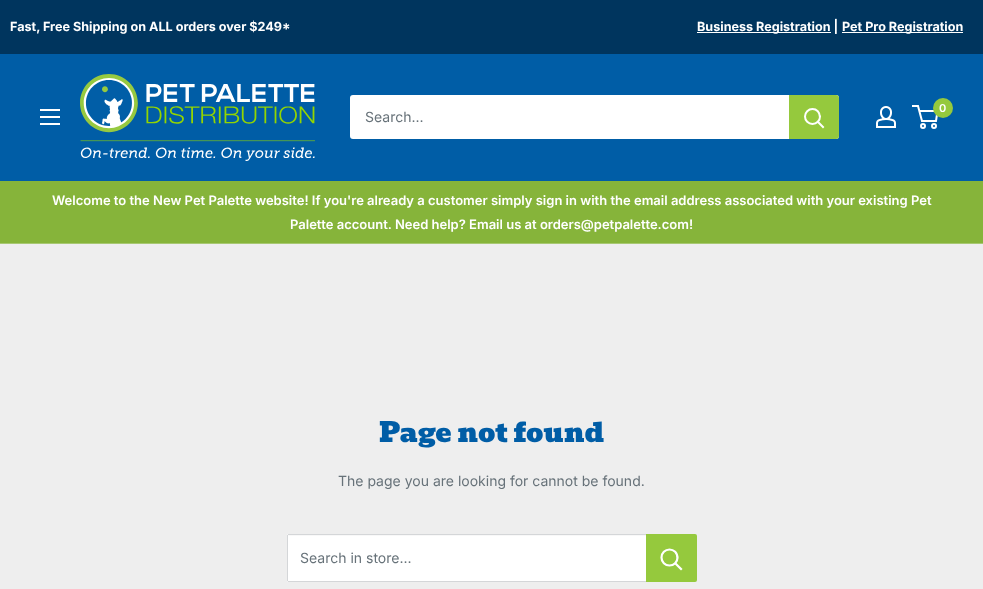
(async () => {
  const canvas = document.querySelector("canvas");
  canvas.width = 983;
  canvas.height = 589;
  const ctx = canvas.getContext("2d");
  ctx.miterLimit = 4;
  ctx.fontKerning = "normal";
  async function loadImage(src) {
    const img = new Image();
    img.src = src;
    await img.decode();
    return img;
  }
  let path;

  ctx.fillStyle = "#eeeeee";
  ctx.fillRect(0, 0, 983, 589);
  for (const [x, y, w, h, color] of [
    [0, 0, 983, 54, "#00355e"],
    [697, 32, 134, 1, "#ffffff"],
    [842, 32, 121, 1, "#ffffff"],
    [0, 54, 983, 127, "#005da6"],
  ]) {
    ctx.fillStyle = color;
    ctx.fillRect(x, y, w, h);
  }
  ctx.drawImage(await loadImage("img/1.png"), 80, 74, 235, 87);
  ctx.drawImage(await loadImage("img/2.png"), 876, 106, 20, 22);
  ctx.beginPath();
  ctx.arc(923, 126, 2, 0, Math.PI * 2);
  ctx.strokeStyle = "#ffffff";
  ctx.lineWidth = 2;
  ctx.stroke();
  ctx.beginPath();
  ctx.arc(934, 126, 2, 0, Math.PI * 2);
  ctx.stroke();
  path = new Path2D("M919.5 111H937.5L936 121H922L918 106H912");
  ctx.stroke(path);
  ctx.fillStyle = "#95c93d";
  ctx.beginPath();
  ctx.arc(943, 108, 10, 0, Math.PI * 2);
  ctx.fill();
  ctx.drawImage(await loadImage("img/3.png"), 40, 109, 20, 16);
  ctx.fillStyle = "#ffffff";
  ctx.beginPath();
  ctx.roundRect(350, 95, 489, 44, 3);
  ctx.fill();
  ctx.fillStyle = "#95c93d";
  ctx.beginPath();
  ctx.roundRect(789, 95, 50, 44, [0, 3, 3, 0]);
  ctx.fill();
  path = new Path2D("M823 127L818 122");
  ctx.lineCap = "square";
  ctx.stroke(path);
  ctx.beginPath();
  ctx.arc(812.5, 116.5, 7.5, 0, Math.PI * 2);
  ctx.stroke();
  ctx.fillStyle = "#86b43a";
  ctx.fillRect(0, 181, 983, 62);
  ctx.fillStyle = "#a7c872";
  ctx.fillRect(0, 243, 983, 1);
  ctx.fillStyle = "#ffffff";
  ctx.beginPath();
  ctx.roundRect(287, 534, 359, 48, [2, 0, 0, 2]);
  ctx.fill();
  ctx.fillStyle = "#f8f8f8";
  path = new Path2D("M289 536H646V535H289C288 535 288 536 288 537C288 536 288 536 289 536Z");
  ctx.fill(path);
  for (const [x, y, w, h, color] of [
    [288, 534, 358, 1, "#d4d6d8"],
    [288, 581, 358, 1, "#d4d6d8"],
    [287, 535, 1, 46, "#d4d6d8"],
  ]) {
    ctx.fillStyle = color;
    ctx.fillRect(x, y, w, h);
  }
  ctx.fillStyle = "#95c93d";
  ctx.beginPath();
  ctx.roundRect(646, 534, 51, 48, [0, 2, 2, 0]);
  ctx.fill();
  path = new Path2D("M681 569L675.5 563.5");
  ctx.lineWidth = 2.2;
  ctx.stroke(path);
  ctx.beginPath();
  ctx.arc(669.5, 557.5, 8, 0, Math.PI * 2);
  ctx.stroke();
  ctx.font = "bold 12.6px Inter";
  ctx.fillStyle = "#ffffff";
  for (const [text, x, y] of [
    ["Fast, Free Shipping on ALL orders over $249*", 10, 31],
    ["Business Registration |", 697, 31],
    ["Pet Pro Registration", 842, 31],
  ]) {
    ctx.fillText(text, x, y);
  }
  ctx.font = "600 11px Inter";
  ctx.fillText("0", 939, 112);
  ctx.font = "14px Inter";
  ctx.fillStyle = "#677279";
  ctx.fillText("Search...", 365, 122);
  ctx.font = "600 13px Inter";
  ctx.fillStyle = "#ffffff";
  ctx.fillText("Welcome to the New Pet Palette website! If you're already a customer simply sign in with the email address associated with your existing Pet", 52, 205);
  ctx.fillText("Palette account. Need help? Email us at orders@petpalette.com!", 290, 229);
  ctx.font = "27px Bevan";
  ctx.fillStyle = "#005da6";
  ctx.fillText("Page not found", 379, 442);
  ctx.font = "14px Inter";
  ctx.fillStyle = "#677279";
  ctx.fillText("The page you are looking for cannot be found.", 338, 486);
  ctx.fillText("Search in store...", 300, 563);
})();
